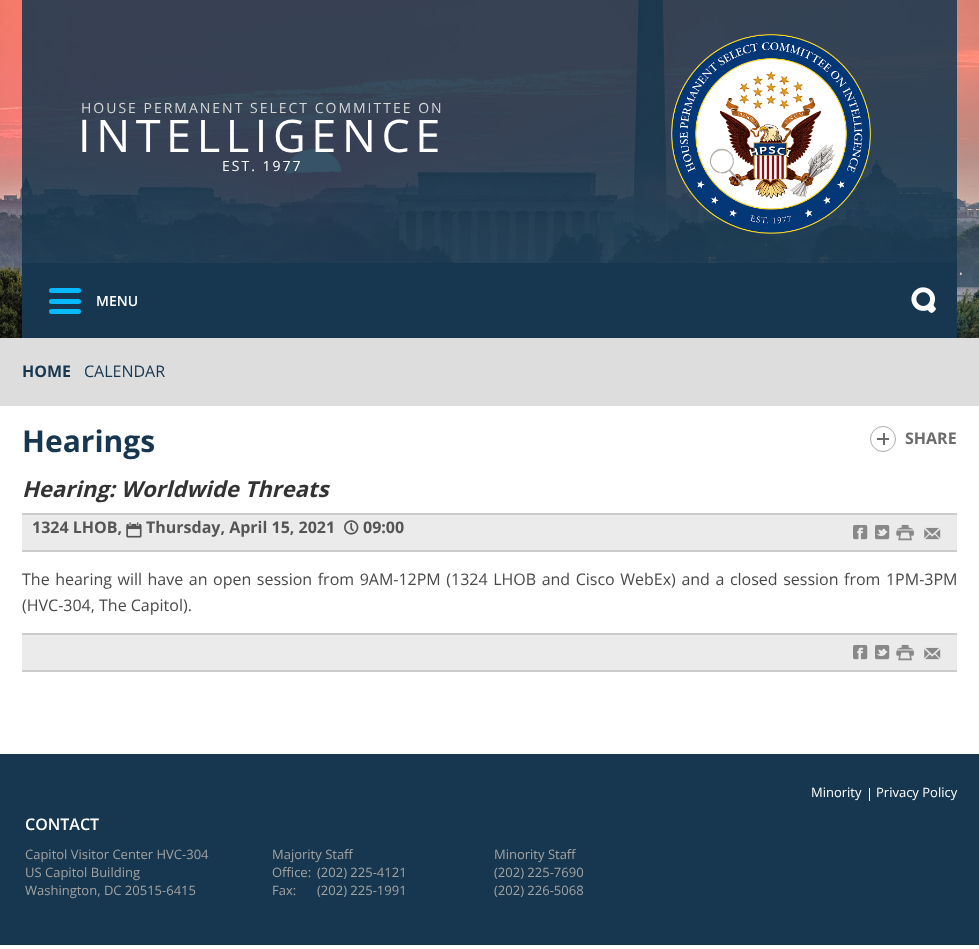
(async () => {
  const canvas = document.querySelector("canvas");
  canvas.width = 979;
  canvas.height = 949;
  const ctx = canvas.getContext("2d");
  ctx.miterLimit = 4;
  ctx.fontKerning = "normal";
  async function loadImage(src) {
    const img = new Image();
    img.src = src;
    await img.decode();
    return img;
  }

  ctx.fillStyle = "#ffffff";
  ctx.fillRect(0, 0, 979, 949);
  ctx.drawImage(await loadImage("img/1.png"), 0, 0, 979, 338);
  ctx.drawImage(await loadImage("img/2.png"), 671, 34, 200, 200);
  ctx.fillStyle = "#16374f";
  ctx.fillRect(22, 263, 935, 75);
  ctx.fillStyle = "#08bafc";
  ctx.beginPath();
  ctx.roundRect(49, 288, 32, 5, 2.5);
  ctx.fill();
  ctx.beginPath();
  ctx.roundRect(49, 299, 32, 5, 2.5);
  ctx.fill();
  ctx.beginPath();
  ctx.roundRect(49, 309, 32, 5, 2.5);
  ctx.fill();
  ctx.drawImage(await loadImage("img/3.png"), 911, 287, 25, 26);
  ctx.fillStyle = "#dddddd";
  ctx.fillRect(0, 338, 979, 68);
  ctx.beginPath();
  ctx.arc(883, 439, 12.5, 0, Math.PI * 2);
  ctx.strokeStyle = "#acacac";
  ctx.stroke();
  for (const [x, y, w, h, color] of [
    [877, 438, 12, 2, "#6b6b6b"],
    [883, 433, 2, 12, "#6b6b6b"],
    [22, 515, 935, 35, "#ebebeb"],
    [22, 513, 935, 2, "#cccccc"],
    [22, 550, 935, 2, "#cccccc"],
  ]) {
    ctx.fillStyle = color;
    ctx.fillRect(x, y, w, h);
  }
  ctx.drawImage(await loadImage("img/4.png"), 126, 522, 16, 16);
  ctx.drawImage(await loadImage("img/5.png"), 344, 520, 15, 15);
  ctx.drawImage(await loadImage("img/6.png"), 853, 525, 15, 15);
  ctx.drawImage(await loadImage("img/7.png"), 875, 525, 15, 15);
  ctx.drawImage(await loadImage("img/8.png"), 896, 524, 18, 17);
  ctx.drawImage(await loadImage("img/9.png"), 924, 527, 17, 13);
  for (const [x, y, w, h, color] of [
    [22, 635, 935, 35, "#ebebeb"],
    [22, 633, 935, 2, "#cccccc"],
    [22, 670, 935, 2, "#cccccc"],
  ]) {
    ctx.fillStyle = color;
    ctx.fillRect(x, y, w, h);
  }
  ctx.drawImage(await loadImage("img/6.png"), 853, 645, 15, 15);
  ctx.drawImage(await loadImage("img/7.png"), 875, 645, 15, 15);
  ctx.drawImage(await loadImage("img/8.png"), 896, 644, 18, 17);
  ctx.drawImage(await loadImage("img/9.png"), 924, 647, 17, 13);
  ctx.fillStyle = "#16374f";
  ctx.fillRect(0, 754, 979, 191);
  ctx.fillStyle = "#ffffff";
  ctx.fillRect(869, 788, 1, 13);
  ctx.letterSpacing = "2px";
  ctx.font = "14px Open Sans";
  ctx.fillStyle = "#d7d7d7";
  ctx.fillText("HOUSE PERMANENT SELECT COMMITTEE ON", 81, 113);
  ctx.letterSpacing = "5.6px";
  ctx.font = "45px Open Sans";
  ctx.fillStyle = "#ffffff";
  ctx.fillText("INTELLIGENCE", 78, 152);
  ctx.letterSpacing = "2px";
  ctx.font = "14px Open Sans";
  ctx.fillText("EST. 1977", 222, 171);
  ctx.letterSpacing = "0px";
  ctx.font = "600 14px Open Sans";
  ctx.fillText("MENU", 96, 306);
  ctx.font = "bold 16px Open Sans";
  ctx.fillStyle = "#16374f";
  ctx.fillText("HOME", 22, 377);
  ctx.font = "16px Open Sans";
  ctx.fillText("CALENDAR", 84, 377);
  ctx.font = "bold 30px Open Sans";
  ctx.fillText("Hearings", 22, 452);
  ctx.font = "bold 16px Open Sans";
  ctx.fillStyle = "#6b6b6b";
  ctx.fillText("SHARE", 905, 444);
  ctx.font = "italic bold 22px Open Sans";
  ctx.fillStyle = "#333333";
  ctx.fillText("Hearing: Worldwide Threats", 22, 497);
  ctx.font = "bold 16px Open Sans";
  ctx.fillStyle = "#555555";
  for (const [text, x, y] of [
    ["1324 LHOB,", 32, 533],
    ["Thursday, April 15, 2021", 146, 533],
    ["09:00", 363, 533],
  ]) {
    ctx.fillText(text, x, y);
  }
  ctx.wordSpacing = "1.4px";
  ctx.font = "16px Open Sans";
  ctx.fillStyle = "#494949";
  ctx.fillText("The hearing will have an open session from 9AM-12PM (1324 LHOB and Cisco WebEx) and a closed session from 1PM-3PM", 22, 585);
  ctx.wordSpacing = "0px";
  ctx.fillText("(HVC-304, The Capitol).", 22, 611);
  ctx.font = "13px Open Sans";
  ctx.fillStyle = "#ffffff";
  ctx.fillText("Minority", 811, 797);
  ctx.fillText("Privacy Policy", 876, 797);
  ctx.font = "600 16px Open Sans";
  ctx.fillText("CONTACT", 25, 830);
  ctx.font = "13px Open Sans";
  ctx.fillStyle = "#a2a2a2";
  for (const [text, x, y] of [
    ["Capitol Visitor Center HVC-304", 25, 859],
    ["US Capitol Building", 25, 877],
    ["Washington, DC 20515-6415", 25, 895],
    ["Majority Staff", 272, 859],
    ["Office:", 272, 877],
    ["(202) 225-4121", 317, 877],
    ["Fax:", 272, 895],
    ["(202) 225-1991", 317, 895],
    ["Minority Staff", 494, 859],
    ["(202) 225-7690", 494, 877],
    ["(202) 226-5068", 494, 895],
  ]) {
    ctx.fillText(text, x, y);
  }
})();
